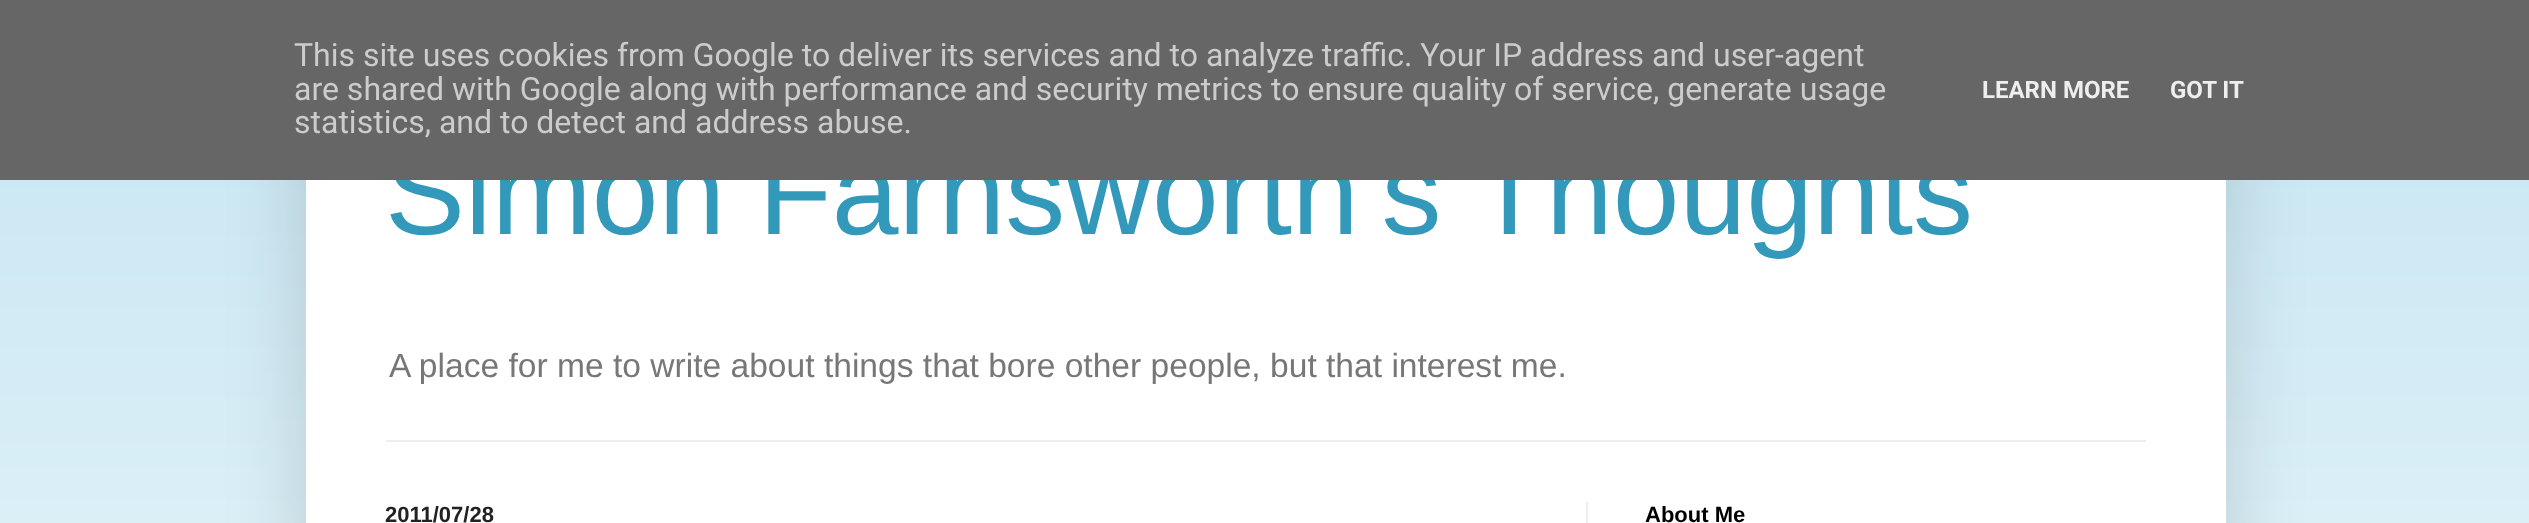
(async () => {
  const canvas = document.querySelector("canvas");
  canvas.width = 2529;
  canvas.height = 523;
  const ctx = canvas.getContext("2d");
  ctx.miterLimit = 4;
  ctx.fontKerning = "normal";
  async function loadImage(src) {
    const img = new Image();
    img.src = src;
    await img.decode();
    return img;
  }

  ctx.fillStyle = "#c2e4f2";
  ctx.fillRect(0, 0, 2529, 523);
  ctx.drawImage(await loadImage("img/1.png"), 0, 180, 2529, 343);
  ctx.fillStyle = "rgba(0, 0, 0, 0.15)";
  ctx.filter = "blur(40px)";
  ctx.beginPath();
  ctx.rect(306, 60, 1920, 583);
  ctx.fill();
  ctx.filter = "none";
  for (const [x, y, w, h, color] of [
    [306, 180, 1920, 343, "#ffffff"],
    [386, 440, 1760, 2, "#eeeeee"],
    [1586, 502, 2, 21, "#eeeeee"],
  ]) {
    ctx.fillStyle = color;
    ctx.fillRect(x, y, w, h);
  }
  ctx.font = "120px Liberation Sans";
  ctx.fillStyle = "#3399bb";
  ctx.fillText("Simon Farnsworth's Thoughts", 385, 234);
  ctx.fillStyle = "#666666";
  ctx.fillRect(0, 0, 2529, 180);
  ctx.font = "bold 24px Roboto";
  ctx.fillStyle = "#eeeeee";
  ctx.fillText("GOT IT", 2170, 98);
  ctx.fillText("LEARN MORE", 1982, 98);
  ctx.font = "32px Roboto";
  ctx.fillStyle = "#cccccc";
  for (const [text, x, y] of [
    ["statistics, and to detect and address abuse.", 294, 133],
    ["are shared with Google along with performance and security metrics to ensure quality of service, generate usage", 294, 100],
    ["This site uses cookies from Google to deliver its services and to analyze traffic. Your IP address and user-agent", 294, 66],
  ]) {
    ctx.fillText(text, x, y);
  }
  ctx.font = "33.6px Liberation Sans";
  ctx.fillStyle = "#777777";
  ctx.fillText("A place for me to write about things that bore other people, but that interest me.", 389, 377);
  ctx.font = "bold 22px Liberation Sans";
  ctx.fillStyle = "#222222";
  ctx.fillText("2011/07/28", 385, 522);
  ctx.fillStyle = "#000000";
  ctx.fillText("About Me", 1645, 522);
})();
